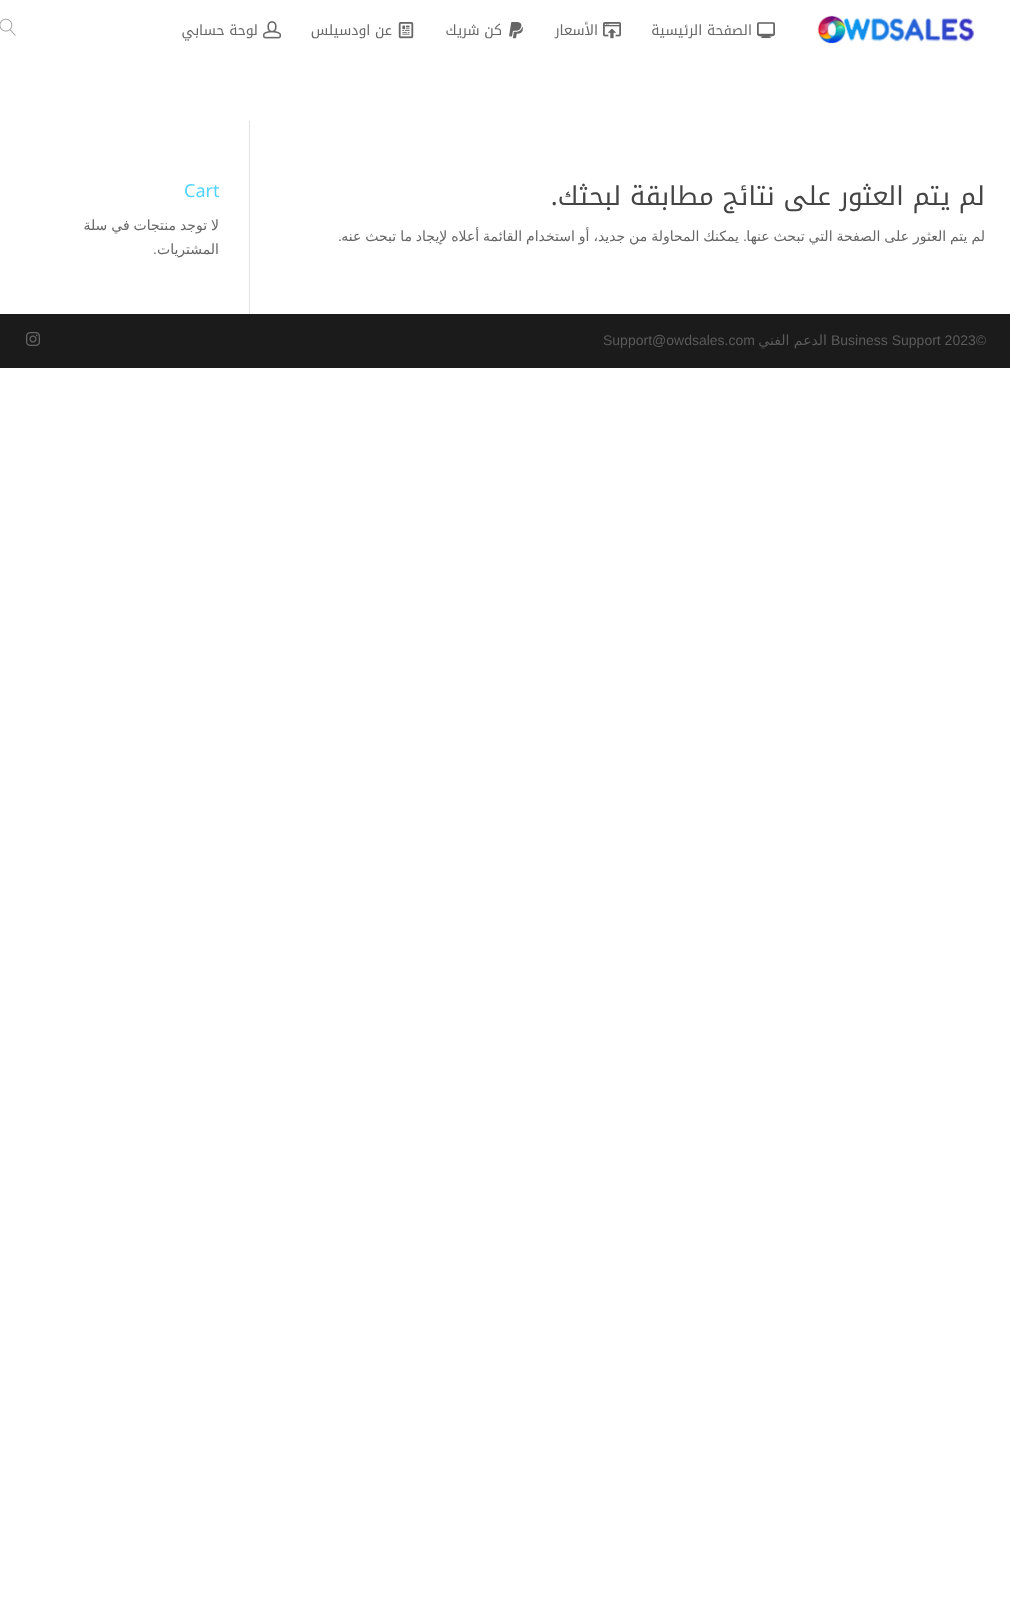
(async () => {
  const canvas = document.querySelector("canvas");
  canvas.width = 1010;
  canvas.height = 1606;
  const ctx = canvas.getContext("2d");
  ctx.miterLimit = 4;
  ctx.fontKerning = "normal";
  async function loadImage(src) {
    const img = new Image();
    img.src = src;
    await img.decode();
    return img;
  }

  ctx.fillStyle = "#ffffff";
  ctx.fillRect(0, 0, 1010, 1606);
  ctx.drawImage(await loadImage("img/1.png"), 817, 15, 157, 29);
  ctx.drawImage(await loadImage("img/2.png"), 757, 22, 18, 17);
  ctx.drawImage(await loadImage("img/3.png"), 603, 22, 18, 17);
  ctx.drawImage(await loadImage("img/4.png"), 509, 22, 14, 17);
  ctx.drawImage(await loadImage("img/5.png"), 398, 22, 16, 17);
  ctx.drawImage(await loadImage("img/6.png"), 263, 21, 18, 18);
  ctx.drawImage(await loadImage("img/7.png"), 0, 18, 16, 18);
  ctx.fillStyle = "#e2e2e2";
  ctx.fillRect(249, 121, 1, 193);
  ctx.fillStyle = "#1b1b1b";
  ctx.fillRect(0, 314, 1010, 54);
  ctx.drawImage(await loadImage("img/8.png"), 26, 332, 14, 14);
  ctx.direction = "rtl";
  ctx.font = "14px Noto Kufi Arabic";
  ctx.fillStyle = "#666666";
  for (const [text, x, y] of [
    ["الصفحة الرئيسية", 752, 35],
    ["الأسعار", 598, 35],
    ["كن شريك", 502, 35],
    ["عن اودسيلس", 392, 35],
    ["لوحة حسابي", 258, 35],
  ]) {
    ctx.fillText(text, x, y);
  }
  ctx.font = "26px Noto Kufi Arabic";
  ctx.fillStyle = "#444444";
  ctx.fillText("لم يتم العثور على نتائج مطابقة لبحثك.", 985, 205);
  ctx.wordSpacing = "-0.5px";
  ctx.font = "14px DejaVu Sans";
  ctx.fillStyle = "#666666";
  ctx.fillText("لم يتم العثور على الصفحة التي تبحث عنها", 985, 241);
  ctx.wordSpacing = "0px";
  ctx.font = "14px Liberation Sans";
  ctx.fillText(".", 747, 241);
  ctx.wordSpacing = "-0.5px";
  ctx.font = "14px DejaVu Sans";
  ctx.fillText("يمكنك المحاولة من جديد، أو استخدام القائمة أعلاه لإيجاد ما تبحث عنه", 739, 241);
  ctx.wordSpacing = "0px";
  ctx.font = "14px Liberation Sans";
  ctx.fillText(".", 342, 241);
  ctx.direction = "ltr";
  ctx.font = "18px Noto Kufi Arabic";
  ctx.fillStyle = "#4fd4ff";
  ctx.fillText("Cart", 184, 197);
  ctx.wordSpacing = "-0.5px";
  ctx.direction = "rtl";
  ctx.font = "14px DejaVu Sans";
  ctx.fillStyle = "#666666";
  ctx.fillText("لا توجد منتجات في سلة", 219, 230);
  ctx.wordSpacing = "0px";
  ctx.fillText("المشتريات", 219, 254);
  ctx.font = "14px Liberation Sans";
  ctx.fillText(".", 157, 254);
  ctx.direction = "ltr";
  ctx.fillStyle = "#5c5a5a";
  ctx.fillText("Business Support 2023©", 831, 345);
  ctx.direction = "rtl";
  ctx.font = "14px DejaVu Sans";
  ctx.fillText("الدعم الفني", 827, 345);
  ctx.direction = "ltr";
  ctx.font = "14px Liberation Sans";
  ctx.fillText("Support@owdsales.com", 603, 345);
})();
